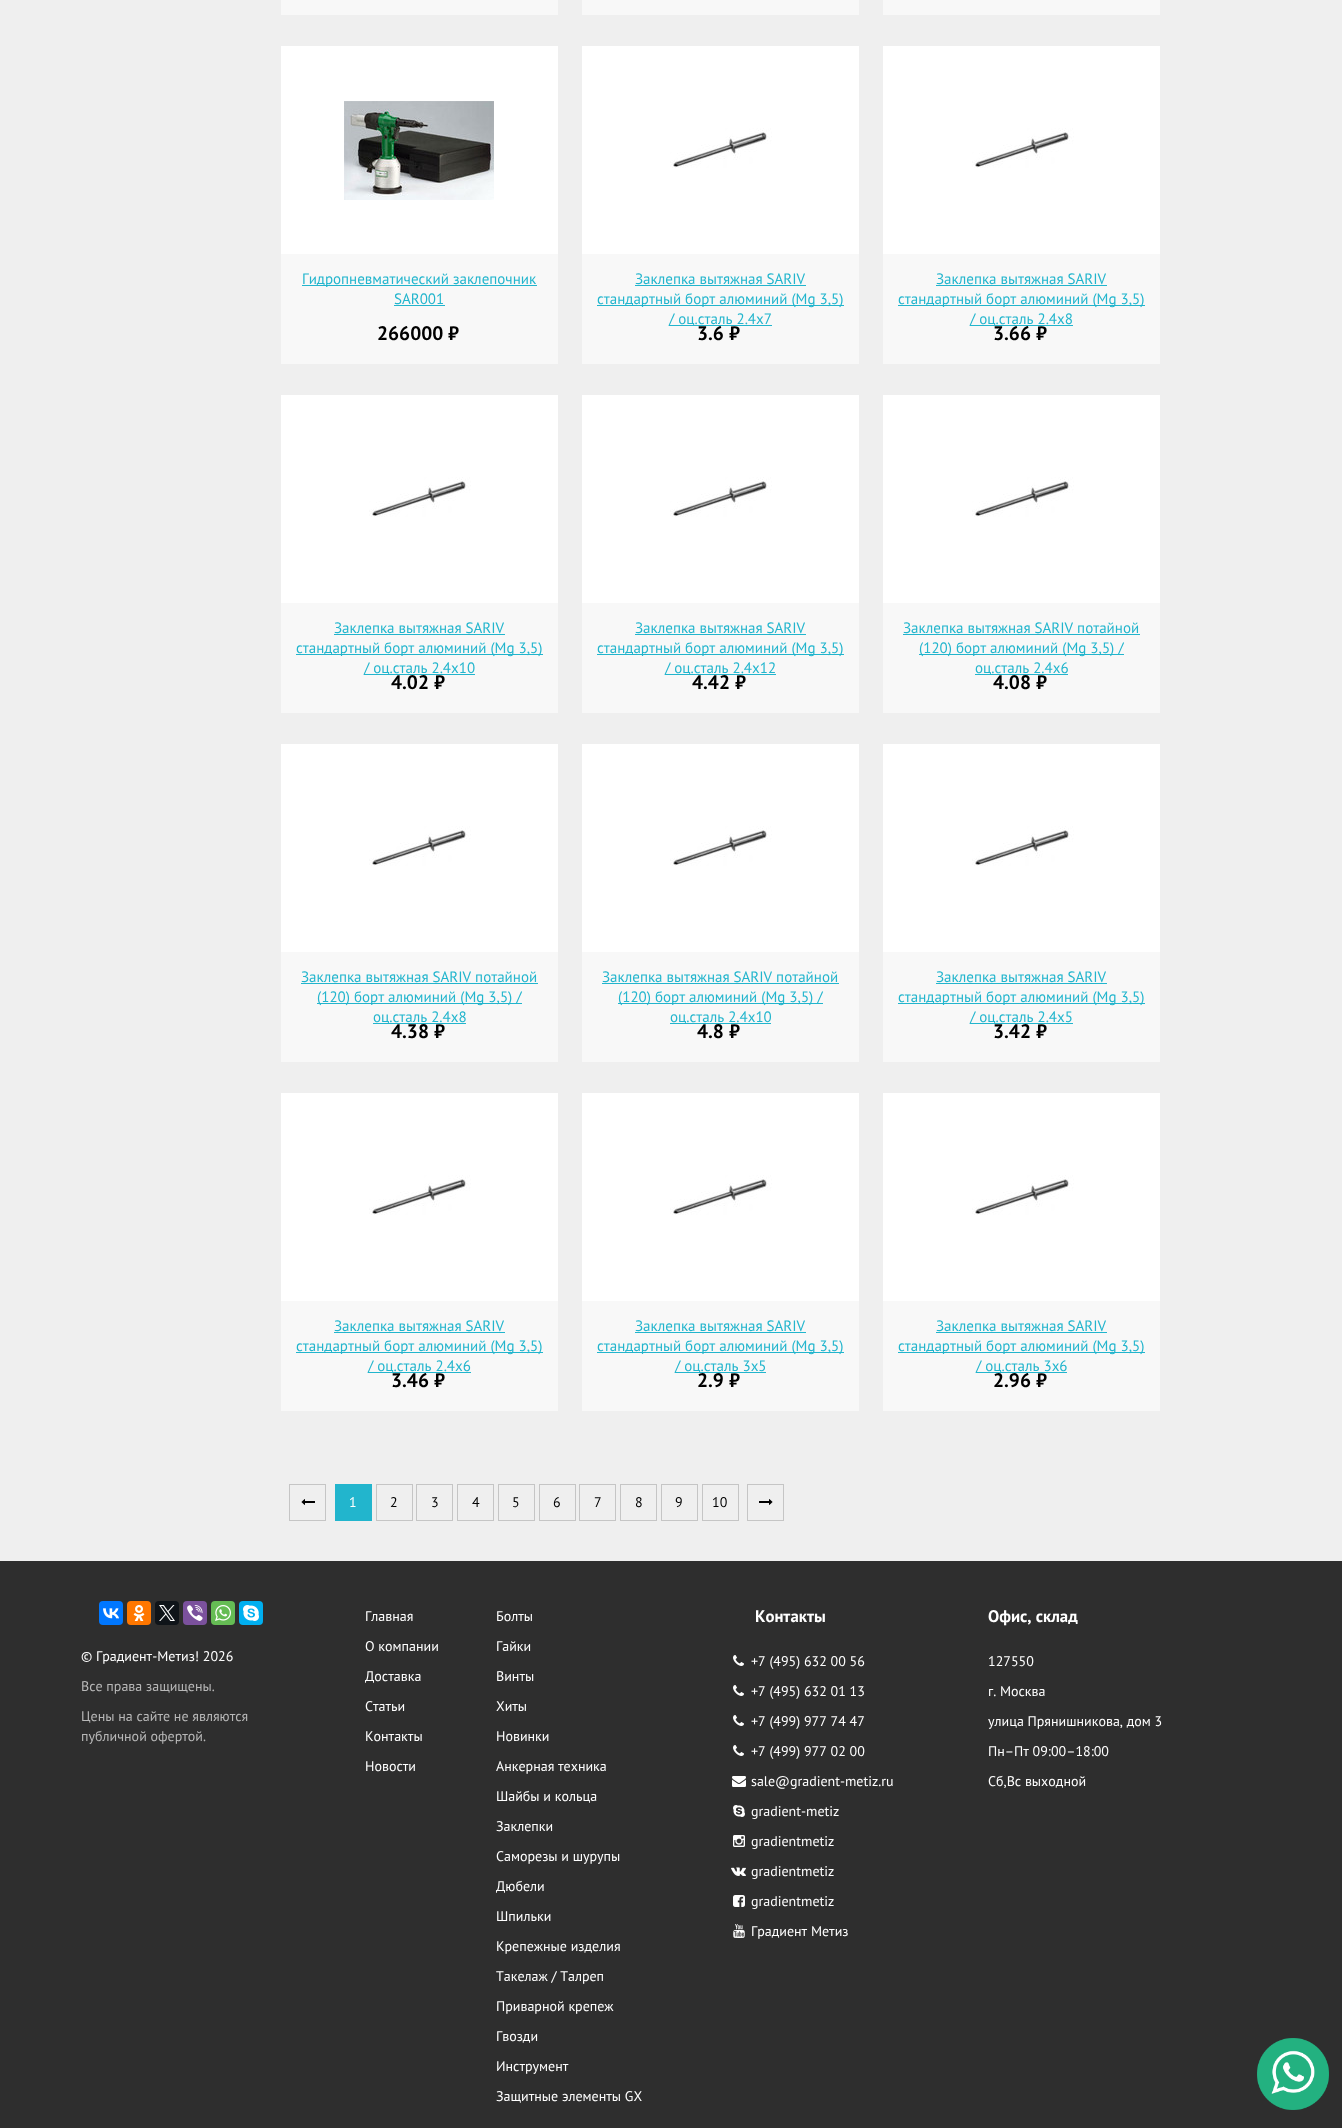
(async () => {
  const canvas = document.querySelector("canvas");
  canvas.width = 1342;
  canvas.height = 2128;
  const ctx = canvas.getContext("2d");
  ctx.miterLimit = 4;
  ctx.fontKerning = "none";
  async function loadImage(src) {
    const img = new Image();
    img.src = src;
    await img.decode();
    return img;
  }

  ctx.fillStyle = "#efefef";
  ctx.fillRect(0, 0, 1342, 2128);
  for (const [x, y, w, h, color] of [
    [281, 0, 277, 15, "#f8f8f8"],
    [582, 0, 277, 15, "#f8f8f8"],
    [883, 0, 277, 15, "#f8f8f8"],
    [281, 254, 277, 110, "#f8f8f8"],
    [281, 46, 277, 208, "#ffffff"],
  ]) {
    ctx.fillStyle = color;
    ctx.fillRect(x, y, w, h);
  }
  ctx.drawImage(await loadImage("img/1.png"), 344, 101, 150, 99);
  for (const [x, y, w, h, color] of [
    [302, 285, 235, 1, "#22b5cd"],
    [394, 305, 51, 1, "#22b5cd"],
    [582, 254, 277, 110, "#f8f8f8"],
    [582, 46, 277, 208, "#ffffff"],
  ]) {
    ctx.fillStyle = color;
    ctx.fillRect(x, y, w, h);
  }
  ctx.drawImage(await loadImage("img/2.png"), 670, 128, 102, 40);
  for (const [x, y, w, h, color] of [
    [635, 285, 171, 1, "#22b5cd"],
    [597, 305, 247, 1, "#22b5cd"],
    [669, 325, 103, 1, "#22b5cd"],
    [883, 254, 277, 110, "#f8f8f8"],
    [883, 46, 277, 208, "#ffffff"],
  ]) {
    ctx.fillStyle = color;
    ctx.fillRect(x, y, w, h);
  }
  ctx.drawImage(await loadImage("img/2.png"), 972, 128, 102, 40);
  for (const [x, y, w, h, color] of [
    [936, 285, 171, 1, "#22b5cd"],
    [898, 305, 247, 1, "#22b5cd"],
    [970, 325, 103, 1, "#22b5cd"],
    [281, 603, 277, 110, "#f8f8f8"],
    [281, 395, 277, 208, "#ffffff"],
  ]) {
    ctx.fillStyle = color;
    ctx.fillRect(x, y, w, h);
  }
  ctx.drawImage(await loadImage("img/2.png"), 369, 477, 102, 40);
  for (const [x, y, w, h, color] of [
    [334, 634, 171, 1, "#22b5cd"],
    [296, 654, 247, 1, "#22b5cd"],
    [364, 674, 111, 1, "#22b5cd"],
    [582, 603, 277, 110, "#f8f8f8"],
    [582, 395, 277, 208, "#ffffff"],
  ]) {
    ctx.fillStyle = color;
    ctx.fillRect(x, y, w, h);
  }
  ctx.drawImage(await loadImage("img/2.png"), 670, 477, 102, 40);
  for (const [x, y, w, h, color] of [
    [635, 634, 171, 1, "#22b5cd"],
    [597, 654, 247, 1, "#22b5cd"],
    [665, 674, 111, 1, "#22b5cd"],
    [883, 603, 277, 110, "#f8f8f8"],
    [883, 395, 277, 208, "#ffffff"],
  ]) {
    ctx.fillStyle = color;
    ctx.fillRect(x, y, w, h);
  }
  ctx.drawImage(await loadImage("img/2.png"), 972, 477, 102, 40);
  for (const [x, y, w, h, color] of [
    [903, 634, 237, 1, "#22b5cd"],
    [919, 654, 205, 1, "#22b5cd"],
    [975, 674, 93, 1, "#22b5cd"],
    [281, 952, 277, 110, "#f8f8f8"],
    [281, 744, 277, 208, "#ffffff"],
  ]) {
    ctx.fillStyle = color;
    ctx.fillRect(x, y, w, h);
  }
  ctx.drawImage(await loadImage("img/2.png"), 369, 826, 102, 40);
  for (const [x, y, w, h, color] of [
    [301, 983, 237, 1, "#22b5cd"],
    [317, 1003, 205, 1, "#22b5cd"],
    [373, 1023, 93, 1, "#22b5cd"],
    [582, 952, 277, 110, "#f8f8f8"],
    [582, 744, 277, 208, "#ffffff"],
  ]) {
    ctx.fillStyle = color;
    ctx.fillRect(x, y, w, h);
  }
  ctx.drawImage(await loadImage("img/2.png"), 670, 826, 102, 40);
  for (const [x, y, w, h, color] of [
    [602, 983, 237, 1, "#22b5cd"],
    [618, 1003, 205, 1, "#22b5cd"],
    [670, 1023, 101, 1, "#22b5cd"],
    [883, 952, 277, 110, "#f8f8f8"],
    [883, 744, 277, 208, "#ffffff"],
  ]) {
    ctx.fillStyle = color;
    ctx.fillRect(x, y, w, h);
  }
  ctx.drawImage(await loadImage("img/2.png"), 972, 826, 102, 40);
  for (const [x, y, w, h, color] of [
    [936, 983, 171, 1, "#22b5cd"],
    [898, 1003, 247, 1, "#22b5cd"],
    [970, 1023, 103, 1, "#22b5cd"],
    [281, 1301, 277, 110, "#f8f8f8"],
    [281, 1093, 277, 208, "#ffffff"],
  ]) {
    ctx.fillStyle = color;
    ctx.fillRect(x, y, w, h);
  }
  ctx.drawImage(await loadImage("img/2.png"), 369, 1175, 102, 40);
  for (const [x, y, w, h, color] of [
    [334, 1332, 171, 1, "#22b5cd"],
    [296, 1352, 247, 1, "#22b5cd"],
    [368, 1372, 103, 1, "#22b5cd"],
    [582, 1301, 277, 110, "#f8f8f8"],
    [582, 1093, 277, 208, "#ffffff"],
  ]) {
    ctx.fillStyle = color;
    ctx.fillRect(x, y, w, h);
  }
  ctx.drawImage(await loadImage("img/2.png"), 670, 1175, 102, 40);
  for (const [x, y, w, h, color] of [
    [635, 1332, 171, 1, "#22b5cd"],
    [597, 1352, 247, 1, "#22b5cd"],
    [675, 1372, 91, 1, "#22b5cd"],
    [883, 1301, 277, 110, "#f8f8f8"],
    [883, 1093, 277, 208, "#ffffff"],
  ]) {
    ctx.fillStyle = color;
    ctx.fillRect(x, y, w, h);
  }
  ctx.drawImage(await loadImage("img/2.png"), 972, 1175, 102, 40);
  for (const [x, y, w, h, color] of [
    [936, 1332, 171, 1, "#22b5cd"],
    [898, 1352, 247, 1, "#22b5cd"],
    [976, 1372, 91, 1, "#22b5cd"],
  ]) {
    ctx.fillStyle = color;
    ctx.fillRect(x, y, w, h);
  }
  ctx.strokeStyle = "#c5c5c5";
  ctx.strokeRect(289.5, 1484.5, 36, 36);
  ctx.drawImage(await loadImage("img/3.png"), 301, 1499, 14, 6);
  ctx.fillRect(335, 1484, 37, 37);
  ctx.strokeRect(376.5, 1484.5, 36, 36);
  ctx.strokeRect(416.5, 1484.5, 36, 36);
  ctx.strokeRect(457.5, 1484.5, 36, 36);
  ctx.strokeRect(498.5, 1484.5, 36, 36);
  ctx.strokeRect(539.5, 1484.5, 36, 36);
  ctx.strokeRect(579.5, 1484.5, 36, 36);
  ctx.strokeRect(620.5, 1484.5, 36, 36);
  ctx.strokeRect(661.5, 1484.5, 36, 36);
  ctx.strokeRect(702.5, 1484.5, 36, 36);
  ctx.strokeRect(747.5, 1484.5, 36, 36);
  ctx.drawImage(await loadImage("img/4.png"), 759, 1499, 14, 6);
  ctx.fillStyle = "#2e2e2e";
  ctx.fillRect(0, 1561, 1342, 567);
  ctx.fillStyle = "#0077ff";
  ctx.beginPath();
  ctx.roundRect(99, 1601, 24, 24, 4);
  ctx.fill();
  ctx.drawImage(await loadImage("img/5.png"), 103, 1608, 16, 11);
  ctx.fillStyle = "#ff7700";
  ctx.beginPath();
  ctx.roundRect(127, 1601, 24, 24, 4);
  ctx.fill();
  ctx.drawImage(await loadImage("img/6.png"), 133, 1605, 12, 16);
  ctx.fillStyle = "#0f1419";
  ctx.beginPath();
  ctx.roundRect(155, 1601, 24, 24, 4);
  ctx.fill();
  ctx.drawImage(await loadImage("img/7.png"), 159, 1605, 16, 16);
  ctx.fillStyle = "#7b519d";
  ctx.beginPath();
  ctx.roundRect(183, 1601, 24, 24, 4);
  ctx.fill();
  ctx.drawImage(await loadImage("img/8.png"), 187, 1605, 16, 16);
  ctx.fillStyle = "#65bc54";
  ctx.beginPath();
  ctx.roundRect(211, 1601, 24, 24, 4);
  ctx.fill();
  ctx.drawImage(await loadImage("img/9.png"), 215, 1605, 16, 16);
  ctx.fillStyle = "#00aff0";
  ctx.beginPath();
  ctx.roundRect(239, 1601, 24, 24, 4);
  ctx.fill();
  ctx.drawImage(await loadImage("img/10.png"), 243, 1605, 16, 16);
  ctx.drawImage(await loadImage("img/11.png"), 733, 1655, 11, 11);
  ctx.drawImage(await loadImage("img/11.png"), 733, 1685, 11, 11);
  ctx.drawImage(await loadImage("img/11.png"), 733, 1715, 11, 11);
  ctx.drawImage(await loadImage("img/11.png"), 733, 1745, 11, 11);
  ctx.drawImage(await loadImage("img/12.png"), 732, 1776, 14, 11);
  ctx.drawImage(await loadImage("img/13.png"), 733, 1805, 12, 12);
  ctx.drawImage(await loadImage("img/14.png"), 733, 1835, 12, 12);
  ctx.drawImage(await loadImage("img/15.png"), 731, 1867, 15, 9);
  ctx.drawImage(await loadImage("img/16.png"), 733, 1895, 12, 12);
  ctx.drawImage(await loadImage("img/17.png"), 733, 1924, 12, 14);
  ctx.drawImage(await loadImage("img/18.png"), 1257, 2038, 72, 72);
  ctx.font = "15px PT Sans";
  ctx.fillStyle = "#22b5cd";
  ctx.fillText("Гидропневматический заклепочник", 302, 284);
  ctx.fillText("SAR001", 394, 304);
  ctx.font = "bold 19.5px PT Sans";
  ctx.fillStyle = "#000000";
  ctx.fillText("266000", 377, 340);
  ctx.font = "bold 19.5px 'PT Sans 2'";
  ctx.fillText("руб.", 448, 340);
  ctx.font = "15px PT Sans";
  ctx.fillStyle = "#22b5cd";
  for (const [text, x, y] of [
    ["Заклепка вытяжная SARIV", 635, 284],
    ["стандартный борт алюминий (Mg 3,5)", 597, 304],
    ["/ оц.сталь 2.4х7", 669, 324],
  ]) {
    ctx.fillText(text, x, y);
  }
  ctx.font = "bold 19.5px PT Sans";
  ctx.fillStyle = "#000000";
  ctx.fillText("3.6", 697, 340);
  ctx.font = "bold 19.5px 'PT Sans 2'";
  ctx.fillText("руб.", 729, 340);
  ctx.font = "15px PT Sans";
  ctx.fillStyle = "#22b5cd";
  for (const [text, x, y] of [
    ["Заклепка вытяжная SARIV", 936, 284],
    ["стандартный борт алюминий (Mg 3,5)", 898, 304],
    ["/ оц.сталь 2.4х8", 970, 324],
  ]) {
    ctx.fillText(text, x, y);
  }
  ctx.font = "bold 19.5px PT Sans";
  ctx.fillStyle = "#000000";
  ctx.fillText("3.66", 993, 340);
  ctx.font = "bold 19.5px 'PT Sans 2'";
  ctx.fillText("руб.", 1036, 340);
  ctx.font = "15px PT Sans";
  ctx.fillStyle = "#22b5cd";
  for (const [text, x, y] of [
    ["Заклепка вытяжная SARIV", 334, 633],
    ["стандартный борт алюминий (Mg 3,5)", 296, 653],
    ["/ оц.сталь 2.4х10", 364, 673],
  ]) {
    ctx.fillText(text, x, y);
  }
  ctx.font = "bold 19.5px PT Sans";
  ctx.fillStyle = "#000000";
  ctx.fillText("4.02", 391, 689);
  ctx.font = "bold 19.5px 'PT Sans 2'";
  ctx.fillText("руб.", 434, 689);
  ctx.font = "15px PT Sans";
  ctx.fillStyle = "#22b5cd";
  for (const [text, x, y] of [
    ["Заклепка вытяжная SARIV", 635, 633],
    ["стандартный борт алюминий (Mg 3,5)", 597, 653],
    ["/ оц.сталь 2.4х12", 665, 673],
  ]) {
    ctx.fillText(text, x, y);
  }
  ctx.font = "bold 19.5px PT Sans";
  ctx.fillStyle = "#000000";
  ctx.fillText("4.42", 692, 689);
  ctx.font = "bold 19.5px 'PT Sans 2'";
  ctx.fillText("руб.", 735, 689);
  ctx.font = "15px PT Sans";
  ctx.fillStyle = "#22b5cd";
  for (const [text, x, y] of [
    ["Заклепка вытяжная SARIV потайной", 903, 633],
    ["(120) борт алюминий (Mg 3,5) /", 919, 653],
    ["оц.сталь 2.4х6", 975, 673],
  ]) {
    ctx.fillText(text, x, y);
  }
  ctx.font = "bold 19.5px PT Sans";
  ctx.fillStyle = "#000000";
  ctx.fillText("4.08", 993, 689);
  ctx.font = "bold 19.5px 'PT Sans 2'";
  ctx.fillText("руб.", 1036, 689);
  ctx.font = "15px PT Sans";
  ctx.fillStyle = "#22b5cd";
  for (const [text, x, y] of [
    ["Заклепка вытяжная SARIV потайной", 301, 982],
    ["(120) борт алюминий (Mg 3,5) /", 317, 1002],
    ["оц.сталь 2.4х8", 373, 1022],
  ]) {
    ctx.fillText(text, x, y);
  }
  ctx.font = "bold 19.5px PT Sans";
  ctx.fillStyle = "#000000";
  ctx.fillText("4.38", 391, 1038);
  ctx.font = "bold 19.5px 'PT Sans 2'";
  ctx.fillText("руб.", 434, 1038);
  ctx.font = "15px PT Sans";
  ctx.fillStyle = "#22b5cd";
  for (const [text, x, y] of [
    ["Заклепка вытяжная SARIV потайной", 602, 982],
    ["(120) борт алюминий (Mg 3,5) /", 618, 1002],
    ["оц.сталь 2.4х10", 670, 1022],
  ]) {
    ctx.fillText(text, x, y);
  }
  ctx.font = "bold 19.5px PT Sans";
  ctx.fillStyle = "#000000";
  ctx.fillText("4.8", 697, 1038);
  ctx.font = "bold 19.5px 'PT Sans 2'";
  ctx.fillText("руб.", 729, 1038);
  ctx.font = "15px PT Sans";
  ctx.fillStyle = "#22b5cd";
  for (const [text, x, y] of [
    ["Заклепка вытяжная SARIV", 936, 982],
    ["стандартный борт алюминий (Mg 3,5)", 898, 1002],
    ["/ оц.сталь 2.4х5", 970, 1022],
  ]) {
    ctx.fillText(text, x, y);
  }
  ctx.font = "bold 19.5px PT Sans";
  ctx.fillStyle = "#000000";
  ctx.fillText("3.42", 993, 1038);
  ctx.font = "bold 19.5px 'PT Sans 2'";
  ctx.fillText("руб.", 1036, 1038);
  ctx.font = "15px PT Sans";
  ctx.fillStyle = "#22b5cd";
  for (const [text, x, y] of [
    ["Заклепка вытяжная SARIV", 334, 1331],
    ["стандартный борт алюминий (Mg 3,5)", 296, 1351],
    ["/ оц.сталь 2.4х6", 368, 1371],
  ]) {
    ctx.fillText(text, x, y);
  }
  ctx.font = "bold 19.5px PT Sans";
  ctx.fillStyle = "#000000";
  ctx.fillText("3.46", 391, 1387);
  ctx.font = "bold 19.5px 'PT Sans 2'";
  ctx.fillText("руб.", 434, 1387);
  ctx.font = "15px PT Sans";
  ctx.fillStyle = "#22b5cd";
  for (const [text, x, y] of [
    ["Заклепка вытяжная SARIV", 635, 1331],
    ["стандартный борт алюминий (Mg 3,5)", 597, 1351],
    ["/ оц.сталь 3х5", 675, 1371],
  ]) {
    ctx.fillText(text, x, y);
  }
  ctx.font = "bold 19.5px PT Sans";
  ctx.fillStyle = "#000000";
  ctx.fillText("2.9", 697, 1387);
  ctx.font = "bold 19.5px 'PT Sans 2'";
  ctx.fillText("руб.", 729, 1387);
  ctx.font = "15px PT Sans";
  ctx.fillStyle = "#22b5cd";
  for (const [text, x, y] of [
    ["Заклепка вытяжная SARIV", 936, 1331],
    ["стандартный борт алюминий (Mg 3,5)", 898, 1351],
    ["/ оц.сталь 3х6", 976, 1371],
  ]) {
    ctx.fillText(text, x, y);
  }
  ctx.font = "bold 19.5px PT Sans";
  ctx.fillStyle = "#000000";
  ctx.fillText("2.96", 993, 1387);
  ctx.font = "bold 19.5px 'PT Sans 2'";
  ctx.fillText("руб.", 1036, 1387);
  ctx.font = "14px PT Sans";
  ctx.fillStyle = "#ffffff";
  ctx.fillText("1", 349, 1507);
  ctx.fillStyle = "#000000";
  for (const [text, x, y] of [
    ["2", 390, 1507],
    ["3", 431, 1507],
    ["4", 472, 1507],
    ["5", 512, 1507],
    ["6", 553, 1507],
    ["7", 594, 1507],
    ["8", 635, 1507],
    ["9", 675, 1507],
    ["10", 712, 1507],
  ]) {
    ctx.fillText(text, x, y);
  }
  ctx.fillStyle = "#ffffff";
  ctx.fillText("© Градиент-Метиз! 2026", 81, 1661);
  ctx.fillStyle = "#b8b8b8";
  for (const [text, x, y] of [
    ["Все права защищены.", 81, 1691],
    ["Цены на сайте не являются", 81, 1721],
    ["публичной офертой.", 81, 1741],
  ]) {
    ctx.fillText(text, x, y);
  }
  ctx.fillStyle = "#ffffff";
  for (const [text, x, y] of [
    ["Главная", 365, 1621],
    ["О компании", 365, 1651],
    ["Доставка", 365, 1681],
    ["Статьи", 365, 1711],
    ["Контакты", 365, 1741],
    ["Новости", 365, 1771],
    ["Болты", 496, 1621],
    ["Гайки", 496, 1651],
    ["Винты", 496, 1681],
    ["Хиты", 496, 1711],
    ["Новинки", 496, 1741],
    ["Анкерная техника", 496, 1771],
    ["Шайбы и кольца", 496, 1801],
    ["Заклепки", 496, 1831],
    ["Саморезы и шурупы", 496, 1861],
    ["Дюбели", 496, 1891],
    ["Шпильки", 496, 1921],
    ["Крепежные изделия", 496, 1951],
    ["Такелаж / Талреп", 496, 1981],
    ["Приварной крепеж", 496, 2011],
    ["Гвозди", 496, 2041],
    ["Инструмент", 496, 2071],
    ["Защитные элементы GX", 496, 2101],
  ]) {
    ctx.fillText(text, x, y);
  }
  ctx.font = "bold 16.75px PT Sans";
  ctx.fillText("Контакты", 755, 1622);
  ctx.font = "14px PT Sans";
  for (const [text, x, y] of [
    ["+7 (495) 632 00 56", 751, 1666],
    ["+7 (495) 632 01 13", 751, 1696],
    ["+7 (499) 977 74 47", 751, 1726],
    ["+7 (499) 977 02 00", 751, 1756],
    ["sale@gradient-metiz.ru", 751, 1786],
    ["gradient-metiz", 751, 1816],
    ["gradientmetiz", 751, 1846],
    ["gradientmetiz", 751, 1876],
    ["gradientmetiz", 751, 1906],
    ["Градиент Метиз", 751, 1936],
  ]) {
    ctx.fillText(text, x, y);
  }
  ctx.font = "bold 16.75px PT Sans";
  ctx.fillText("Офис, склад", 988, 1622);
  ctx.font = "14px PT Sans";
  for (const [text, x, y] of [
    ["127550", 988, 1666],
    ["г. Москва", 988, 1696],
    ["улица Прянишникова, дом 3", 988, 1726],
    ["Пн–Пт 09:00–18:00", 988, 1756],
    ["Сб,Вс выходной", 988, 1786],
  ]) {
    ctx.fillText(text, x, y);
  }
})();
